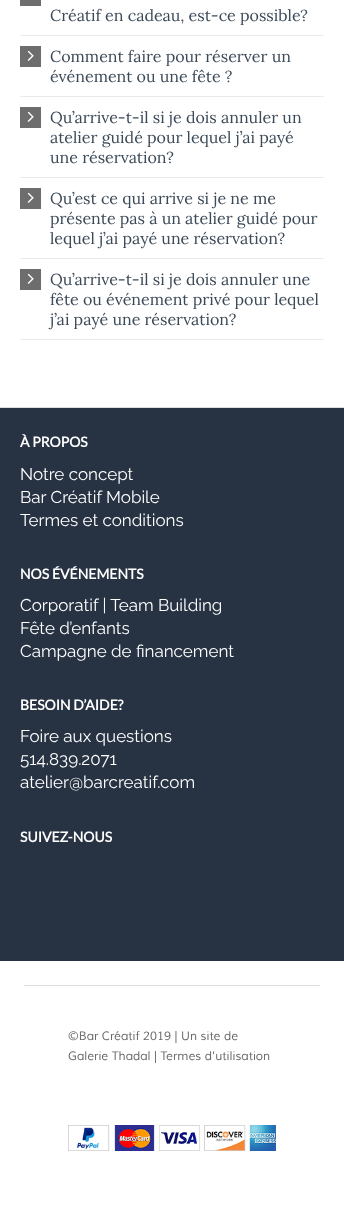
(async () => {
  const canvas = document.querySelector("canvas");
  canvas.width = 344;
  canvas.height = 1209;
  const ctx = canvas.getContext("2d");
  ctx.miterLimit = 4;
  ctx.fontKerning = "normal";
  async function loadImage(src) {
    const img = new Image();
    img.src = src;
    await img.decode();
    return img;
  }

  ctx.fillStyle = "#ffffff";
  ctx.fillRect(0, 0, 344, 1209);
  for (const [x, y, w, h, color] of [
    [20, 35, 304, 1, "#e8eaeb"],
    [20, 0, 21, 6, "#6e6d6d"],
    [20, 96, 304, 1, "#e8eaeb"],
    [20, 46, 21, 21, "#6e6d6d"],
  ]) {
    ctx.fillStyle = color;
    ctx.fillRect(x, y, w, h);
  }
  ctx.drawImage(await loadImage("img/1.png"), 27, 51, 7, 10);
  ctx.fillStyle = "#e8eaeb";
  ctx.fillRect(20, 177, 304, 1);
  ctx.fillStyle = "#6e6d6d";
  ctx.fillRect(20, 107, 21, 21);
  ctx.drawImage(await loadImage("img/1.png"), 27, 112, 7, 10);
  ctx.fillStyle = "#e8eaeb";
  ctx.fillRect(20, 258, 304, 1);
  ctx.fillStyle = "#6e6d6d";
  ctx.fillRect(20, 188, 21, 21);
  ctx.drawImage(await loadImage("img/1.png"), 27, 193, 7, 10);
  ctx.fillStyle = "#e8eaeb";
  ctx.fillRect(20, 339, 304, 1);
  ctx.fillStyle = "#6e6d6d";
  ctx.fillRect(20, 269, 21, 21);
  ctx.drawImage(await loadImage("img/1.png"), 27, 274, 7, 10);
  for (const [x, y, w, h, color] of [
    [0, 408, 344, 553, "#273243"],
    [0, 407, 344, 1, "#dfdcdc"],
    [24, 985, 296, 1, "#dfdcdc"],
  ]) {
    ctx.fillStyle = color;
    ctx.fillRect(x, y, w, h);
  }
  ctx.drawImage(await loadImage("img/2.png"), 68, 1125, 208, 26);
  ctx.font = "16px Lora";
  ctx.fillStyle = "#3c4a58";
  for (const [text, x, y] of [
    ["Créatif en cadeau, est-ce possible?", 50, 21],
    ["Comment faire pour réserver un", 50, 62],
    ["événement ou une fête ?", 50, 82],
    ["Qu’arrive-t-il si je dois annuler un", 50, 123],
    ["atelier guidé pour lequel j’ai payé", 50, 143],
    ["une réservation?", 50, 163],
    ["Qu’est ce qui arrive si je ne me", 50, 204],
    ["présente pas à un atelier guidé pour", 50, 224],
    ["lequel j’ai payé une réservation?", 50, 244],
    ["Qu’arrive-t-il si je dois annuler une", 50, 285],
    ["fête ou événement privé pour lequel", 50, 305],
    ["j’ai payé une réservation?", 50, 325],
  ]) {
    ctx.fillText(text, x, y);
  }
  ctx.font = "bold 14px Lato";
  ctx.fillStyle = "#ffffff";
  ctx.fillText("À PROPOS", 20, 447);
  ctx.font = "100 17px Raleway";
  for (const [text, x, y] of [
    ["Notre concept", 20, 480],
    ["Bar Créatif Mobile", 20, 503],
    ["Termes et conditions", 20, 526],
  ]) {
    ctx.fillText(text, x, y);
  }
  ctx.font = "bold 14px Lato";
  ctx.fillText("NOS ÉVÉNEMENTS", 20, 579);
  ctx.font = "100 17px Raleway";
  for (const [text, x, y] of [
    ["Corporatif | Team Building", 20, 611],
    ["Fête d’enfants", 20, 634],
    ["Campagne de financement", 20, 657],
  ]) {
    ctx.fillText(text, x, y);
  }
  ctx.font = "bold 14px Lato";
  ctx.fillText("BESOIN D’AIDE?", 20, 710);
  ctx.font = "100 17px Raleway";
  for (const [text, x, y] of [
    ["Foire aux questions", 20, 742],
    ["514.839.2071", 20, 765],
    ["atelier@barcreatif.com", 20, 788],
  ]) {
    ctx.fillText(text, x, y);
  }
  ctx.font = "bold 14px Lato";
  ctx.fillText("SUIVEZ-NOUS", 20, 842);
  ctx.font = "italic 12px Muli";
  ctx.fillStyle = "#696969";
  ctx.fillText("©Bar Créatif 2019 | Un site de", 68, 1040);
  ctx.fillText("Galerie Thadal | Termes d'utilisation", 68, 1060);
})();
